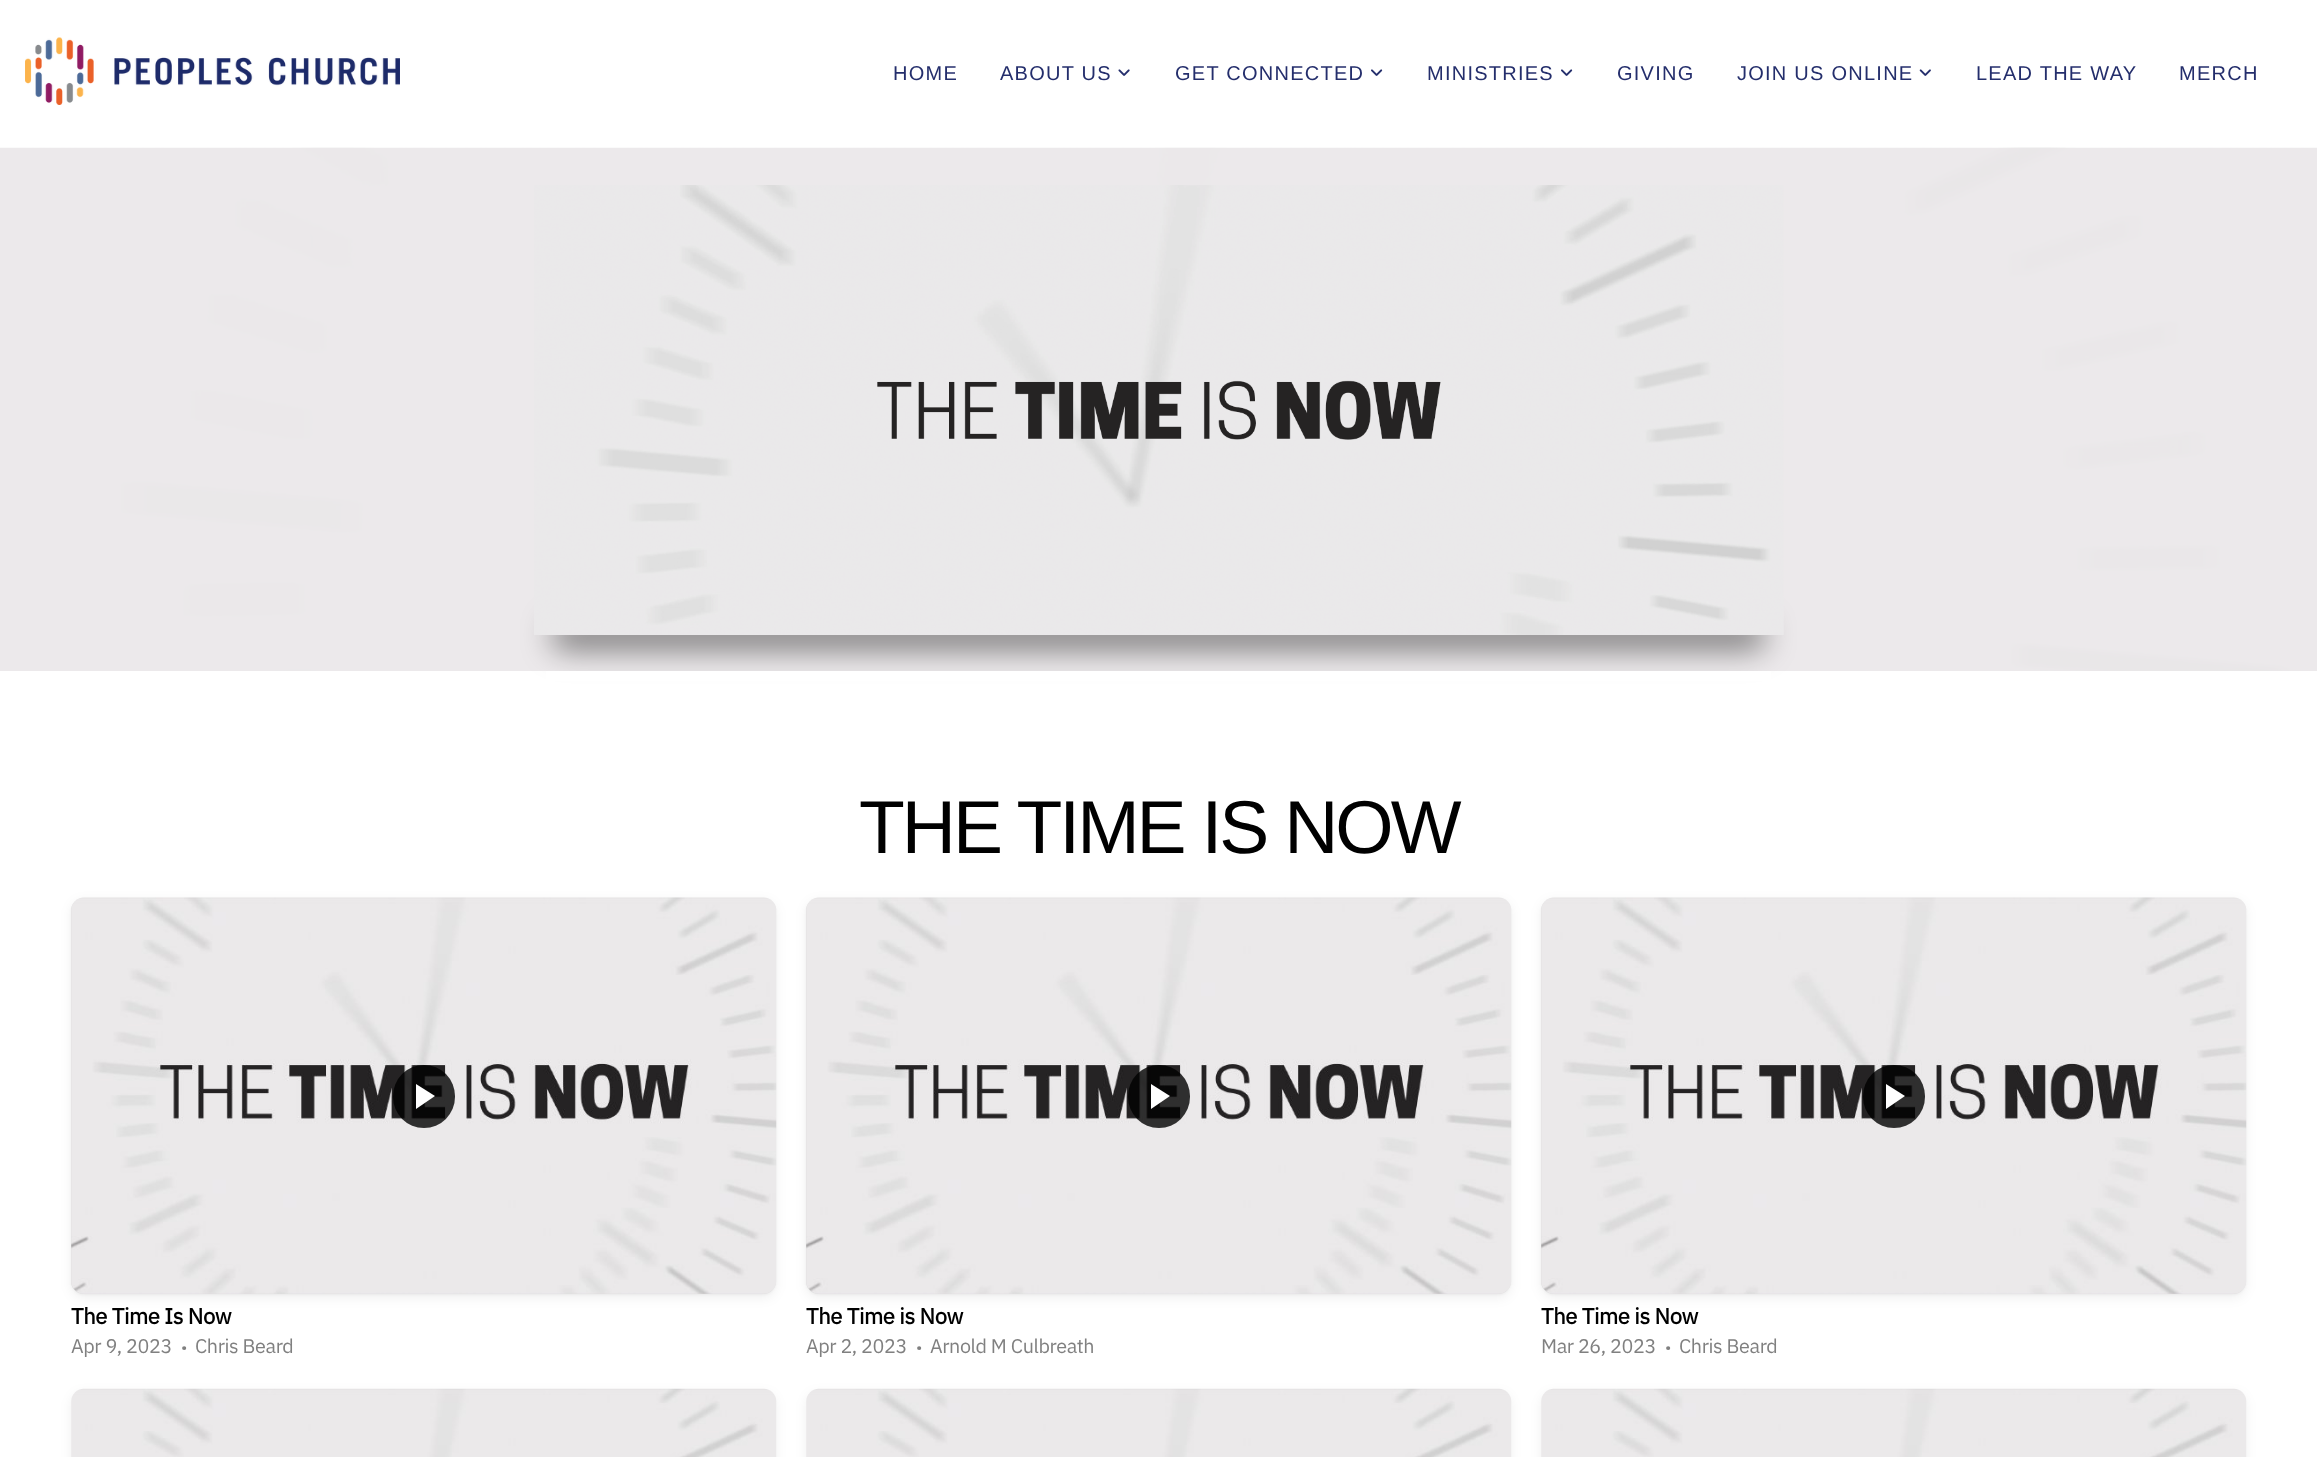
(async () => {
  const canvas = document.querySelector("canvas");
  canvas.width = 2317;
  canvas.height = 1457;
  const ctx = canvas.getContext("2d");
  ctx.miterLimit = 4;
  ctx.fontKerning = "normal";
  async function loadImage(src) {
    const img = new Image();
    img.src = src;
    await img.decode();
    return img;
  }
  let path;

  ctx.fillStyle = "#ffffff";
  ctx.fillRect(0, 0, 2317, 1457);
  ctx.drawImage(await loadImage("img/1.png"), 25, 37, 375, 68);
  ctx.drawImage(await loadImage("img/2.png"), 1118, 69, 12, 7);
  ctx.drawImage(await loadImage("img/3.png"), 1371, 69, 12, 7);
  ctx.drawImage(await loadImage("img/3.png"), 1561, 69, 12, 7);
  ctx.drawImage(await loadImage("img/4.png"), 1919, 69, 12, 7);
  ctx.drawImage(await loadImage("img/5.png"), 0, 147, 2317, 524);
  ctx.fillStyle = "rgba(0, 0, 0, 0.5)";
  ctx.filter = "blur(15.5px)";
  ctx.beginPath();
  ctx.roundRect(551, 621, 1215, 28, 14);
  ctx.fill();
  ctx.filter = "none";
  ctx.drawImage(await loadImage("img/6.png"), 534, 185, 1250, 450);
  ctx.fillStyle = "#ffffff";
  ctx.fillRect(546, 671, 1225, 10);
  ctx.fillStyle = "rgba(0, 0, 0, 0.04)";
  ctx.filter = "blur(1px)";
  ctx.beginPath();
  ctx.roundRect(71, 899, 705, 396, 13);
  ctx.fill();
  ctx.filter = "none";
  ctx.fillStyle = "rgba(0, 0, 0, 0.06)";
  ctx.filter = "blur(6px)";
  ctx.beginPath();
  ctx.roundRect(71, 901, 705, 397, 13);
  ctx.fill();
  ctx.filter = "none";
  ctx.fillStyle = "#dcdbdc";
  ctx.beginPath();
  ctx.roundRect(71, 898, 705, 396, 13);
  ctx.fill();
  ctx.drawImage(await loadImage("img/7.png"), 71, 897, 706, 397);
  ctx.fillStyle = "rgba(0, 0, 0, 0.8)";
  ctx.beginPath();
  ctx.roundRect(393, 1065, 62, 63, 31);
  ctx.fill();
  ctx.fillStyle = "#ffffff";
  path = new Path2D("M416 1109V1084L435 1096Z");
  ctx.fill(path);
  ctx.fillStyle = "rgba(0, 0, 0, 0.04)";
  ctx.filter = "blur(1px)";
  ctx.beginPath();
  ctx.roundRect(806, 899, 705, 396, 13);
  ctx.fill();
  ctx.filter = "none";
  ctx.fillStyle = "rgba(0, 0, 0, 0.06)";
  ctx.filter = "blur(6px)";
  ctx.beginPath();
  ctx.roundRect(806, 901, 705, 397, 13);
  ctx.fill();
  ctx.filter = "none";
  ctx.fillStyle = "#dcdbdc";
  ctx.beginPath();
  ctx.roundRect(806, 898, 705, 396, 13);
  ctx.fill();
  ctx.drawImage(await loadImage("img/8.png"), 806, 897, 706, 397);
  ctx.fillStyle = "rgba(0, 0, 0, 0.8)";
  ctx.beginPath();
  ctx.roundRect(1128, 1065, 62, 63, 31);
  ctx.fill();
  ctx.fillStyle = "#ffffff";
  path = new Path2D("M1151 1109V1084L1170 1096Z");
  ctx.fill(path);
  ctx.fillStyle = "rgba(0, 0, 0, 0.04)";
  ctx.filter = "blur(1px)";
  ctx.beginPath();
  ctx.roundRect(1541, 899, 705, 396, 13);
  ctx.fill();
  ctx.filter = "none";
  ctx.fillStyle = "rgba(0, 0, 0, 0.06)";
  ctx.filter = "blur(6px)";
  ctx.beginPath();
  ctx.roundRect(1541, 901, 705, 397, 13);
  ctx.fill();
  ctx.filter = "none";
  ctx.fillStyle = "#dcdbdc";
  ctx.beginPath();
  ctx.roundRect(1541, 898, 705, 396, 13);
  ctx.fill();
  ctx.drawImage(await loadImage("img/9.png"), 1541, 897, 706, 397);
  ctx.fillStyle = "rgba(0, 0, 0, 0.8)";
  ctx.beginPath();
  ctx.roundRect(1863, 1065, 62, 63, 31);
  ctx.fill();
  ctx.fillStyle = "#ffffff";
  path = new Path2D("M1886 1109V1084L1905 1096Z");
  ctx.fill(path);
  ctx.fillStyle = "rgba(0, 0, 0, 0.06)";
  ctx.filter = "blur(6px)";
  ctx.beginPath();
  ctx.roundRect(71, 1393, 705, 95, 13);
  ctx.fill();
  ctx.filter = "none";
  ctx.drawImage(await loadImage("img/10.png"), 71, 1388, 706, 69);
  ctx.filter = "blur(6px)";
  ctx.beginPath();
  ctx.roundRect(806, 1393, 705, 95, 13);
  ctx.fill();
  ctx.filter = "none";
  ctx.drawImage(await loadImage("img/10.png"), 806, 1388, 706, 69);
  ctx.filter = "blur(6px)";
  ctx.beginPath();
  ctx.roundRect(1541, 1393, 705, 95, 13);
  ctx.fill();
  ctx.filter = "none";
  ctx.drawImage(await loadImage("img/10.png"), 1541, 1388, 706, 69);
  ctx.letterSpacing = "1.25px";
  ctx.font = "20px Liberation Sans";
  ctx.fillStyle = "#242e6c";
  for (const [text, x, y] of [
    ["HOME", 893, 80],
    ["ABOUT US", 1000, 80],
    ["GET CONNECTED", 1175, 80],
    ["MINISTRIES", 1427, 80],
    ["GIVING", 1617, 80],
    ["JOIN US ONLINE", 1737, 80],
    ["LEAD THE WAY", 1976, 80],
    ["MERCH", 2179, 80],
  ]) {
    ctx.fillText(text, x, y);
  }
  ctx.letterSpacing = "-3px";
  ctx.font = "75px Liberation Sans";
  ctx.fillStyle = "#000000";
  ctx.fillText("THE TIME IS NOW", 859, 853);
  ctx.letterSpacing = "-0.4px";
  ctx.font = "bold 22px IBM Plex Sans";
  ctx.fillText("The Time Is Now", 71, 1324);
  ctx.font = "19.75px IBM Plex Sans";
  ctx.fillStyle = "#808080";
  ctx.fillText("Apr 9, 2023", 71, 1353);
  ctx.font = "16px IBM Plex Sans";
  ctx.fillText("•", 181, 1353);
  ctx.font = "19.75px IBM Plex Sans";
  ctx.fillText("Chris Beard", 195, 1353);
  ctx.font = "bold 22px IBM Plex Sans";
  ctx.fillStyle = "#000000";
  ctx.fillText("The Time is Now", 806, 1324);
  ctx.font = "19.75px IBM Plex Sans";
  ctx.fillStyle = "#808080";
  ctx.fillText("Apr 2, 2023", 806, 1353);
  ctx.font = "16px IBM Plex Sans";
  ctx.fillText("•", 916, 1353);
  ctx.font = "19.75px IBM Plex Sans";
  ctx.fillText("Arnold M Culbreath", 930, 1353);
  ctx.font = "bold 22px IBM Plex Sans";
  ctx.fillStyle = "#000000";
  ctx.fillText("The Time is Now", 1541, 1324);
  ctx.font = "19.75px IBM Plex Sans";
  ctx.fillStyle = "#808080";
  ctx.fillText("Mar 26, 2023", 1541, 1353);
  ctx.font = "16px IBM Plex Sans";
  ctx.fillText("•", 1665, 1353);
  ctx.font = "19.75px IBM Plex Sans";
  ctx.fillText("Chris Beard", 1679, 1353);
})();
